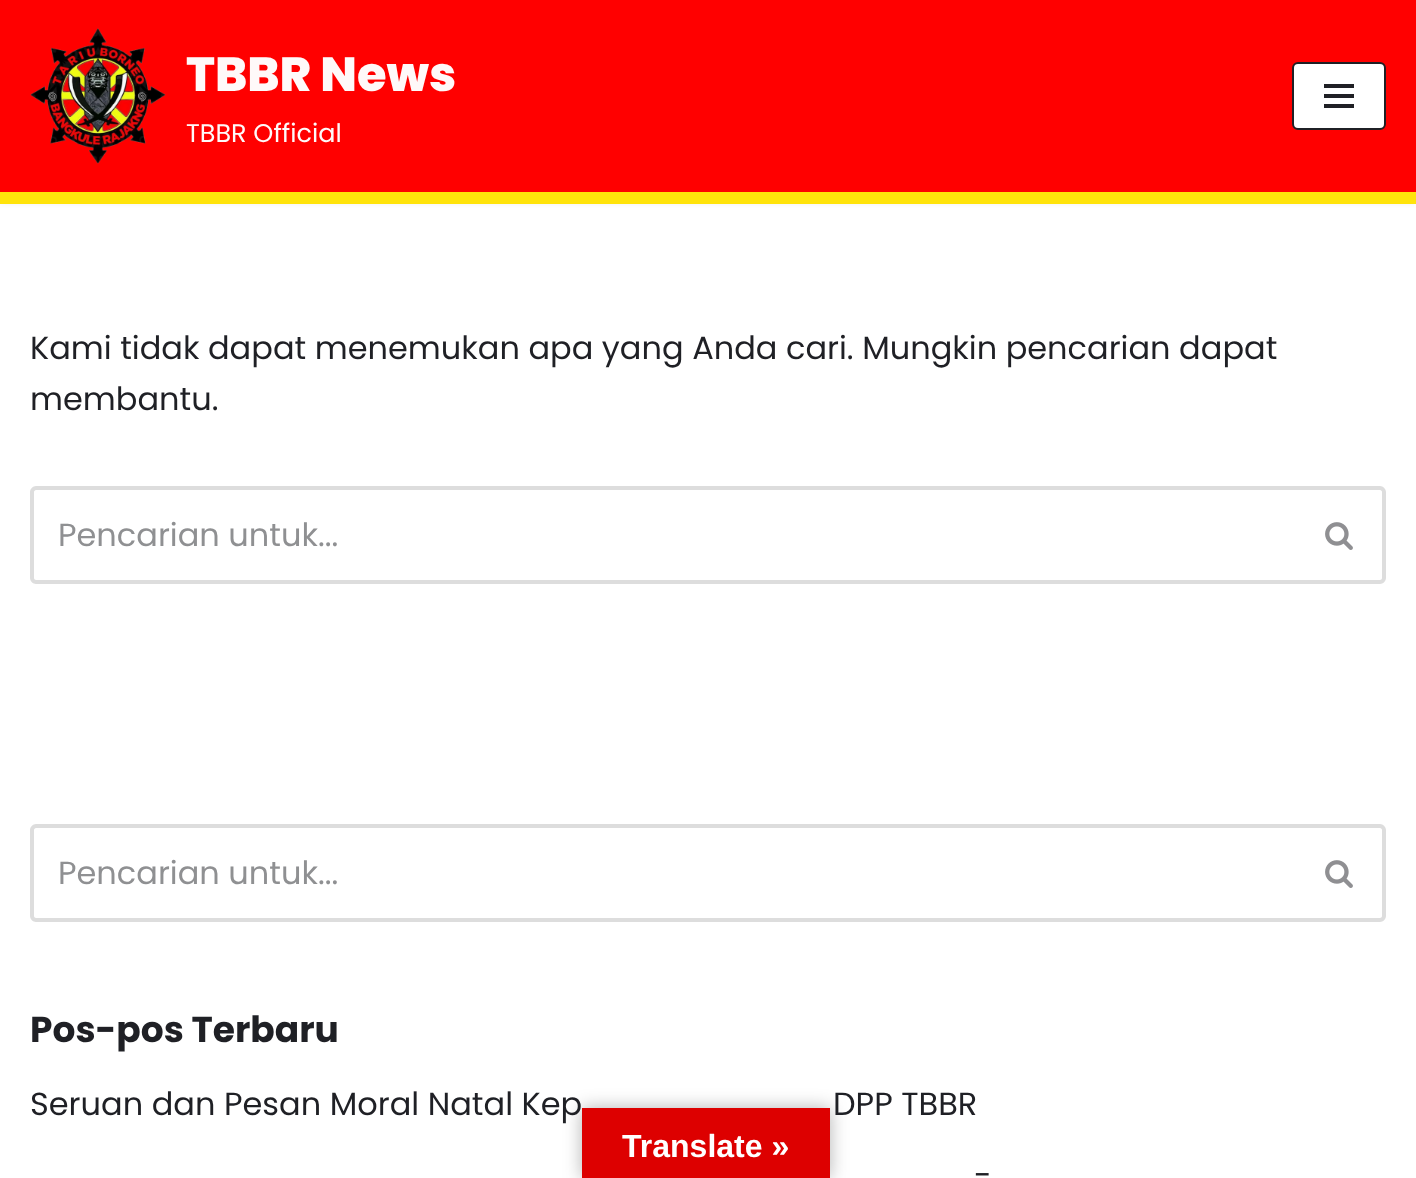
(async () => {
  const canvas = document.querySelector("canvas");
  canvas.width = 1416;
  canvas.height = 1178;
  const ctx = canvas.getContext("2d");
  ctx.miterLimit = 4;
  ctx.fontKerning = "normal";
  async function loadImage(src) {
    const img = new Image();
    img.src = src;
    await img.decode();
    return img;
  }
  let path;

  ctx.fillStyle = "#ffffff";
  ctx.fillRect(0, 0, 1416, 1178);
  ctx.fillStyle = "rgba(0, 0, 0, 0.1)";
  ctx.filter = "blur(3px)";
  ctx.beginPath();
  ctx.rect(0, -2, 1416, 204);
  ctx.fill();
  ctx.filter = "none";
  ctx.fillStyle = "#ff0000";
  ctx.fillRect(0, 0, 1416, 192);
  ctx.fillStyle = "#ffe30b";
  ctx.fillRect(0, 192, 1416, 12);
  ctx.drawImage(await loadImage("img/1.png"), 30, 28, 136, 136);
  ctx.fillStyle = "#ffffff";
  ctx.beginPath();
  ctx.roundRect(1293, 63, 92, 66, 5);
  ctx.fill();
  ctx.strokeStyle = "#1f2025";
  ctx.lineWidth = 2;
  ctx.stroke();
  for (const [x, y, w, h, color] of [
    [1324, 84, 30, 4, "#1f2025"],
    [1324, 94, 30, 4, "#1f2025"],
    [1324, 104, 30, 4, "#1f2025"],
  ]) {
    ctx.fillStyle = color;
    ctx.fillRect(x, y, w, h);
  }
  ctx.fillStyle = "#dddddd";
  path = new Path2D("M36 486H1296V584H36C33 584 30 581 30 578V492C30 489 33 486 36 486ZM36 490H1296V580H36C35 580 34 579 34 578V492C34 491 35 490 36 490Z");
  ctx.fill(path, "evenodd");
  path = new Path2D("M1296 486H1380C1383 486 1386 489 1386 492V578C1386 581 1383 584 1380 584H1296ZM1296 490H1380C1381 490 1382 491 1382 492V578C1382 579 1381 580 1380 580H1296Z");
  ctx.fill(path, "evenodd");
  ctx.drawImage(await loadImage("img/2.png"), 1325, 522, 28, 28);
  path = new Path2D("M36 824H1296V922H36C33 922 30 919 30 916V830C30 827 33 824 36 824ZM36 828H1296V918H36C35 918 34 917 34 916V830C34 829 35 828 36 828Z");
  ctx.fill(path, "evenodd");
  path = new Path2D("M1296 824H1380C1383 824 1386 827 1386 830V916C1386 919 1383 922 1380 922H1296ZM1296 828H1380C1381 828 1382 829 1382 830V916C1382 917 1381 918 1380 918H1296Z");
  ctx.fill(path, "evenodd");
  ctx.drawImage(await loadImage("img/2.png"), 1325, 860, 28, 28);
  ctx.fillStyle = "rgba(0, 0, 0, 0.3)";
  ctx.filter = "blur(9px)";
  ctx.beginPath();
  ctx.rect(582, 1108, 248, 70);
  ctx.fill();
  ctx.filter = "none";
  ctx.fillStyle = "#dd0000";
  ctx.fillRect(582, 1108, 248, 70);
  ctx.font = "800 48px Poppins";
  ctx.fillStyle = "#fff9f9";
  ctx.fillText("TBBR News", 186, 91);
  ctx.font = "25.5px Poppins";
  ctx.fillText("TBBR Official", 186, 142);
  ctx.font = "32px Poppins";
  ctx.fillStyle = "#1f2025";
  ctx.fillText("Kami tidak dapat menemukan apa yang Anda cari. Mungkin pencarian dapat", 30, 359);
  ctx.fillText("membantu.", 30, 410);
  ctx.fillStyle = "#8f9092";
  ctx.fillText("Pencarian untuk...", 58, 546);
  ctx.fillText("Pencarian untuk...", 58, 884);
  ctx.font = "bold 36px Poppins";
  ctx.fillStyle = "#1f2025";
  ctx.fillText("Pos-pos Terbaru", 30, 1042);
  ctx.font = "32px Poppins";
  for (const [text, x, y] of [
    ["Seruan dan Pesan Moral Natal Kep", 30, 1115],
    ["DPP TBBR", 833, 1115],
    ["-", 974, 1186],
  ]) {
    ctx.fillText(text, x, y);
  }
  ctx.font = "bold 32px Liberation Sans";
  ctx.fillStyle = "#ffffff";
  ctx.fillText("Translate »", 622, 1157);
})();
